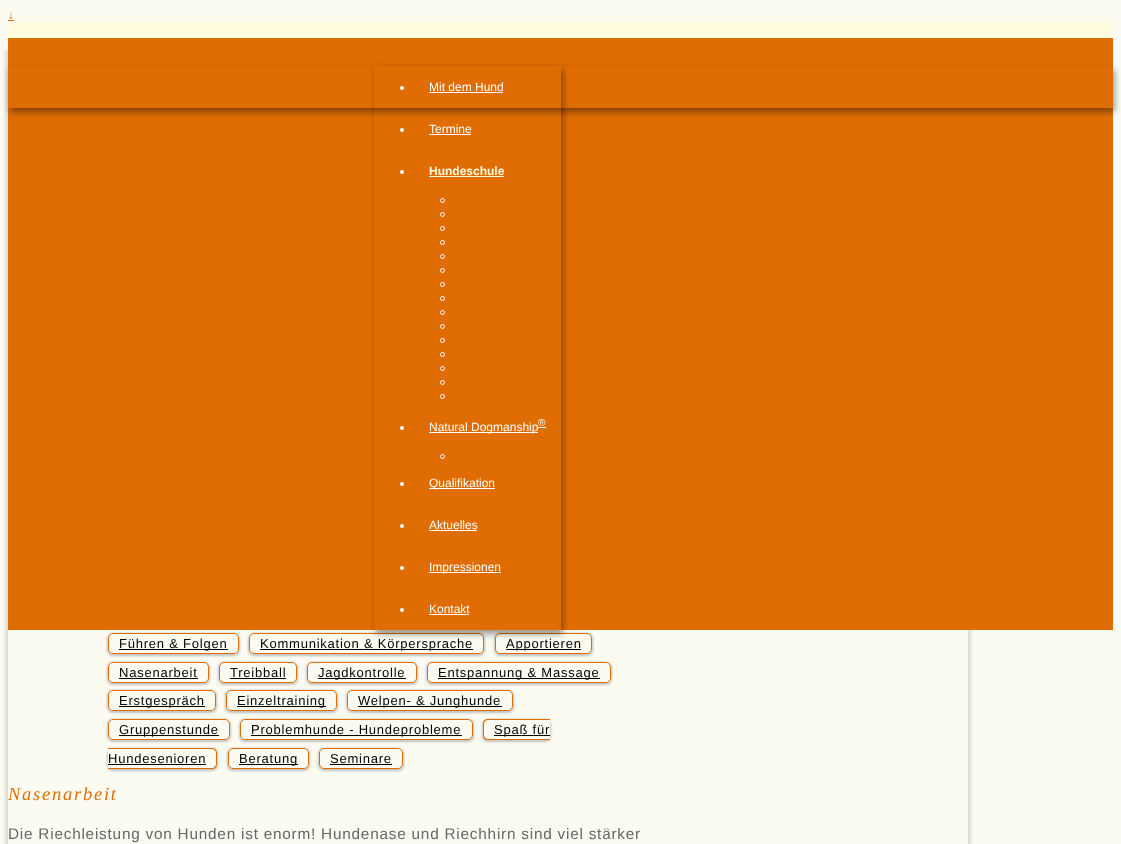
(async () => {
  const canvas = document.querySelector("canvas");
  canvas.width = 1121;
  canvas.height = 844;
  const ctx = canvas.getContext("2d");
  ctx.miterLimit = 4;
  ctx.fontKerning = "normal";
  let path;

  ctx.fillStyle = "#fcfbf2";
  ctx.fillRect(0, 0, 1121, 844);
  ctx.fillStyle = "#df6d03";
  ctx.fillRect(8, 20, 6, 1);
  ctx.fillStyle = "#fffce0";
  ctx.fillRect(8, 22, 1105, 16);
  ctx.save();
  path = new Path2D("M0 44H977V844H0ZM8 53H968V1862H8Z");
  ctx.clip(path, "evenodd");
  ctx.fillStyle = "rgba(127, 127, 127, 0.25)";
  ctx.filter = "blur(1.5px)";
  ctx.beginPath();
  ctx.rect(5, 50, 966, 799);
  ctx.fill();
  ctx.filter = "none";
  ctx.restore();
  ctx.fillStyle = "#df6d03";
  ctx.fillRect(8, 38, 1105, 592);
  ctx.save();
  path = new Path2D("M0 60H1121V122H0ZM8 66H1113V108H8Z");
  ctx.clip(path, "evenodd");
  ctx.fillStyle = "rgba(0, 0, 0, 0.4)";
  ctx.filter = "blur(3px)";
  ctx.beginPath();
  ctx.rect(10, 70, 1105, 42);
  ctx.fill();
  ctx.filter = "none";
  ctx.restore();
  ctx.save();
  path = new Path2D("M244 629H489V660H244ZM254 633H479C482 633 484 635 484 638V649C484 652 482 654 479 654H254C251 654 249 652 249 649V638C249 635 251 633 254 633Z");
  ctx.clip(path, "evenodd");
  ctx.fillStyle = "#c0c0c0";
  ctx.filter = "blur(1px)";
  ctx.beginPath();
  ctx.roundRect(248, 633, 237, 23, 6);
  ctx.fill();
  ctx.filter = "none";
  ctx.restore();
  ctx.beginPath();
  ctx.roundRect(249.5, 633.5, 234, 20, 4.5);
  ctx.strokeStyle = "#df6d03";
  ctx.stroke();
  ctx.save();
  path = new Path2D("M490 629H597V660H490ZM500 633H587C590 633 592 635 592 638V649C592 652 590 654 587 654H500C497 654 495 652 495 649V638C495 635 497 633 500 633Z");
  ctx.clip(path, "evenodd");
  ctx.fillStyle = "#c0c0c0";
  ctx.filter = "blur(1px)";
  ctx.beginPath();
  ctx.roundRect(494, 633, 99, 23, 6);
  ctx.fill();
  ctx.filter = "none";
  ctx.restore();
  ctx.beginPath();
  ctx.roundRect(495.5, 633.5, 96, 20, 4.5);
  ctx.stroke();
  ctx.save();
  path = new Path2D("M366 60H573V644H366ZM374 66H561V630H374Z");
  ctx.clip(path, "evenodd");
  ctx.fillStyle = "rgba(0, 0, 0, 0.4)";
  ctx.filter = "blur(3px)";
  ctx.beginPath();
  ctx.rect(376, 70, 187, 564);
  ctx.fill();
  ctx.filter = "none";
  ctx.restore();
  ctx.fillStyle = "#ffffff";
  ctx.beginPath();
  ctx.arc(402, 88, 2, 0, Math.PI * 2);
  ctx.fill();
  ctx.fillRect(429, 92, 74, 1);
  ctx.beginPath();
  ctx.arc(402, 130, 2, 0, Math.PI * 2);
  ctx.fill();
  ctx.fillRect(429, 134, 42, 1);
  ctx.beginPath();
  ctx.arc(402, 172, 2, 0, Math.PI * 2);
  ctx.fill();
  ctx.fillStyle = "#fffce0";
  ctx.fillRect(429, 176, 75, 1);
  ctx.beginPath();
  ctx.arc(442.5, 200.5, 2, 0, Math.PI * 2);
  ctx.strokeStyle = "#ffffff";
  ctx.stroke();
  ctx.beginPath();
  ctx.arc(442.5, 214.5, 2, 0, Math.PI * 2);
  ctx.stroke();
  ctx.beginPath();
  ctx.arc(442.5, 228.5, 2, 0, Math.PI * 2);
  ctx.stroke();
  ctx.beginPath();
  ctx.arc(442.5, 242.5, 2, 0, Math.PI * 2);
  ctx.stroke();
  ctx.beginPath();
  ctx.arc(442.5, 256.5, 2, 0, Math.PI * 2);
  ctx.stroke();
  ctx.beginPath();
  ctx.arc(442.5, 270.5, 2, 0, Math.PI * 2);
  ctx.stroke();
  ctx.beginPath();
  ctx.arc(442.5, 284.5, 2, 0, Math.PI * 2);
  ctx.stroke();
  ctx.beginPath();
  ctx.arc(442.5, 298.5, 2, 0, Math.PI * 2);
  ctx.stroke();
  ctx.beginPath();
  ctx.arc(442.5, 312.5, 2, 0, Math.PI * 2);
  ctx.stroke();
  ctx.beginPath();
  ctx.arc(442.5, 326.5, 2, 0, Math.PI * 2);
  ctx.stroke();
  ctx.beginPath();
  ctx.arc(442.5, 340.5, 2, 0, Math.PI * 2);
  ctx.stroke();
  ctx.beginPath();
  ctx.arc(442.5, 354.5, 2, 0, Math.PI * 2);
  ctx.stroke();
  ctx.beginPath();
  ctx.arc(442.5, 368.5, 2, 0, Math.PI * 2);
  ctx.stroke();
  ctx.beginPath();
  ctx.arc(442.5, 382.5, 2, 0, Math.PI * 2);
  ctx.stroke();
  ctx.beginPath();
  ctx.arc(442.5, 396.5, 2, 0, Math.PI * 2);
  ctx.stroke();
  ctx.fillStyle = "#ffffff";
  ctx.beginPath();
  ctx.arc(402, 428, 2, 0, Math.PI * 2);
  ctx.fill();
  ctx.fillRect(429, 432, 109, 1);
  ctx.fillRect(538, 427, 8, 1);
  ctx.beginPath();
  ctx.arc(442.5, 456.5, 2, 0, Math.PI * 2);
  ctx.stroke();
  ctx.beginPath();
  ctx.arc(402, 484, 2, 0, Math.PI * 2);
  ctx.fill();
  ctx.fillRect(429, 488, 66, 1);
  ctx.beginPath();
  ctx.arc(402, 526, 2, 0, Math.PI * 2);
  ctx.fill();
  ctx.fillRect(429, 530, 48, 1);
  ctx.beginPath();
  ctx.arc(402, 568, 2, 0, Math.PI * 2);
  ctx.fill();
  ctx.fillRect(429, 572, 72, 1);
  ctx.beginPath();
  ctx.arc(402, 610, 2, 0, Math.PI * 2);
  ctx.fill();
  ctx.fillRect(429, 614, 40, 1);
  ctx.save();
  path = new Path2D("M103 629H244V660H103ZM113 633H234C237 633 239 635 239 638V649C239 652 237 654 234 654H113C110 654 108 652 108 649V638C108 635 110 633 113 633Z");
  ctx.clip(path, "evenodd");
  ctx.fillStyle = "#c0c0c0";
  ctx.filter = "blur(1px)";
  ctx.beginPath();
  ctx.roundRect(107, 633, 133, 23, 6);
  ctx.fill();
  ctx.filter = "none";
  ctx.restore();
  ctx.beginPath();
  ctx.roundRect(108.5, 633.5, 130, 20, 4.5);
  ctx.strokeStyle = "#df6d03";
  ctx.stroke();
  for (const [x, y, w, h, color] of [
    [119, 649, 109, 1, "#000000"],
    [260, 649, 213, 1, "#000000"],
    [506, 649, 75, 1, "#000000"],
  ]) {
    ctx.fillStyle = color;
    ctx.fillRect(x, y, w, h);
  }
  ctx.save();
  path = new Path2D("M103 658H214V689H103ZM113 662H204C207 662 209 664 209 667V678C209 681 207 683 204 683H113C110 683 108 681 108 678V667C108 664 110 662 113 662Z");
  ctx.clip(path, "evenodd");
  ctx.fillStyle = "#c0c0c0";
  ctx.filter = "blur(1px)";
  ctx.beginPath();
  ctx.roundRect(107, 662, 103, 23, 6);
  ctx.fill();
  ctx.filter = "none";
  ctx.restore();
  ctx.beginPath();
  ctx.roundRect(108.5, 662.5, 100, 20, 4.5);
  ctx.stroke();
  ctx.fillRect(119, 678, 79, 1);
  ctx.save();
  path = new Path2D("M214 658H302V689H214ZM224 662H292C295 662 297 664 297 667V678C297 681 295 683 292 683H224C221 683 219 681 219 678V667C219 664 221 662 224 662Z");
  ctx.clip(path, "evenodd");
  ctx.fillStyle = "#c0c0c0";
  ctx.filter = "blur(1px)";
  ctx.beginPath();
  ctx.roundRect(218, 662, 80, 23, 6);
  ctx.fill();
  ctx.filter = "none";
  ctx.restore();
  ctx.beginPath();
  ctx.roundRect(219.5, 662.5, 77, 20, 4.5);
  ctx.stroke();
  ctx.fillRect(230, 678, 56, 1);
  ctx.save();
  path = new Path2D("M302 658H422V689H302ZM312 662H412C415 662 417 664 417 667V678C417 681 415 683 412 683H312C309 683 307 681 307 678V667C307 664 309 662 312 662Z");
  ctx.clip(path, "evenodd");
  ctx.fillStyle = "#c0c0c0";
  ctx.filter = "blur(1px)";
  ctx.beginPath();
  ctx.roundRect(306, 662, 112, 23, 6);
  ctx.fill();
  ctx.filter = "none";
  ctx.restore();
  ctx.beginPath();
  ctx.roundRect(307.5, 662.5, 109, 20, 4.5);
  ctx.stroke();
  ctx.fillRect(318, 678, 88, 1);
  ctx.save();
  path = new Path2D("M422 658H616V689H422ZM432 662H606C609 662 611 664 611 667V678C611 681 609 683 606 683H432C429 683 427 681 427 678V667C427 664 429 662 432 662Z");
  ctx.clip(path, "evenodd");
  ctx.fillStyle = "#c0c0c0";
  ctx.filter = "blur(1px)";
  ctx.beginPath();
  ctx.roundRect(426, 662, 186, 23, 6);
  ctx.fill();
  ctx.filter = "none";
  ctx.restore();
  ctx.beginPath();
  ctx.roundRect(427.5, 662.5, 183, 20, 4.5);
  ctx.stroke();
  ctx.fillRect(438, 678, 162, 1);
  ctx.save();
  path = new Path2D("M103 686H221V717H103ZM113 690H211C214 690 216 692 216 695V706C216 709 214 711 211 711H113C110 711 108 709 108 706V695C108 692 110 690 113 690Z");
  ctx.clip(path, "evenodd");
  ctx.fillStyle = "#c0c0c0";
  ctx.filter = "blur(1px)";
  ctx.beginPath();
  ctx.roundRect(107, 690, 110, 23, 6);
  ctx.fill();
  ctx.filter = "none";
  ctx.restore();
  ctx.beginPath();
  ctx.roundRect(108.5, 690.5, 107, 20, 4.5);
  ctx.stroke();
  ctx.fillRect(119, 706, 86, 1);
  ctx.save();
  path = new Path2D("M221 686H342V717H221ZM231 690H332C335 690 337 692 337 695V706C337 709 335 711 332 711H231C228 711 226 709 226 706V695C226 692 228 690 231 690Z");
  ctx.clip(path, "evenodd");
  ctx.fillStyle = "#c0c0c0";
  ctx.filter = "blur(1px)";
  ctx.beginPath();
  ctx.roundRect(225, 690, 113, 23, 6);
  ctx.fill();
  ctx.filter = "none";
  ctx.restore();
  ctx.beginPath();
  ctx.roundRect(226.5, 690.5, 110, 20, 4.5);
  ctx.stroke();
  ctx.fillRect(237, 706, 89, 1);
  ctx.save();
  path = new Path2D("M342 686H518V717H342ZM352 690H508C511 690 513 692 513 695V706C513 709 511 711 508 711H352C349 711 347 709 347 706V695C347 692 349 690 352 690Z");
  ctx.clip(path, "evenodd");
  ctx.fillStyle = "#c0c0c0";
  ctx.filter = "blur(1px)";
  ctx.beginPath();
  ctx.roundRect(346, 690, 168, 23, 6);
  ctx.fill();
  ctx.filter = "none";
  ctx.restore();
  ctx.beginPath();
  ctx.roundRect(347.5, 690.5, 165, 20, 4.5);
  ctx.stroke();
  ctx.fillRect(358, 706, 144, 1);
  ctx.save();
  path = new Path2D("M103 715H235V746H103ZM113 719H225C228 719 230 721 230 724V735C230 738 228 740 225 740H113C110 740 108 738 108 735V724C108 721 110 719 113 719Z");
  ctx.clip(path, "evenodd");
  ctx.fillStyle = "#c0c0c0";
  ctx.filter = "blur(1px)";
  ctx.beginPath();
  ctx.roundRect(107, 719, 124, 23, 6);
  ctx.fill();
  ctx.filter = "none";
  ctx.restore();
  ctx.beginPath();
  ctx.roundRect(108.5, 719.5, 121, 20, 4.5);
  ctx.stroke();
  ctx.fillRect(119, 735, 100, 1);
  ctx.save();
  path = new Path2D("M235 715H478V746H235ZM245 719H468C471 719 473 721 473 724V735C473 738 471 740 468 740H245C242 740 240 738 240 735V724C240 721 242 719 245 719Z");
  ctx.clip(path, "evenodd");
  ctx.fillStyle = "#c0c0c0";
  ctx.filter = "blur(1px)";
  ctx.beginPath();
  ctx.roundRect(239, 719, 235, 23, 6);
  ctx.fill();
  ctx.filter = "none";
  ctx.restore();
  ctx.beginPath();
  ctx.roundRect(240.5, 719.5, 232, 20, 4.5);
  ctx.stroke();
  ctx.fillRect(251, 735, 211, 1);
  ctx.save();
  path = new Path2D("M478 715H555V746H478ZM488 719H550V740H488C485 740 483 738 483 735V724C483 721 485 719 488 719Z");
  ctx.clip(path, "evenodd");
  ctx.fillStyle = "#c0c0c0";
  ctx.filter = "blur(1px)";
  ctx.beginPath();
  ctx.roundRect(482, 719, 69, 23, 6);
  ctx.fill();
  ctx.filter = "none";
  ctx.restore();
  ctx.fillStyle = "#df6d03";
  path = new Path2D("M488 719H550V740H488C485 740 483 738 483 735V724C483 721 485 719 488 719ZM488 720H550V739H488C486 739 484 737 484 735V724C484 722 486 720 488 720Z");
  ctx.fill(path, "evenodd");
  ctx.fillStyle = "#000000";
  ctx.fillRect(494, 735, 56, 1);
  ctx.save();
  path = new Path2D("M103 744H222V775H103ZM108 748H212C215 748 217 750 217 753V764C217 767 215 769 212 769H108Z");
  ctx.clip(path, "evenodd");
  ctx.fillStyle = "#c0c0c0";
  ctx.filter = "blur(1px)";
  ctx.beginPath();
  ctx.roundRect(107, 748, 111, 23, 6);
  ctx.fill();
  ctx.filter = "none";
  ctx.restore();
  ctx.fillStyle = "#df6d03";
  path = new Path2D("M108 748H212C215 748 217 750 217 753V764C217 767 215 769 212 769H108ZM108 749H212C214 749 216 751 216 753V764C216 766 214 768 212 768H108Z");
  ctx.fill(path, "evenodd");
  ctx.fillStyle = "#000000";
  ctx.fillRect(108, 764, 98, 1);
  ctx.save();
  path = new Path2D("M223 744H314V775H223ZM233 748H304C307 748 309 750 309 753V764C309 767 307 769 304 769H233C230 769 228 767 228 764V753C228 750 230 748 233 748Z");
  ctx.clip(path, "evenodd");
  ctx.fillStyle = "#c0c0c0";
  ctx.filter = "blur(1px)";
  ctx.beginPath();
  ctx.roundRect(227, 748, 83, 23, 6);
  ctx.fill();
  ctx.filter = "none";
  ctx.restore();
  ctx.beginPath();
  ctx.roundRect(228.5, 748.5, 80, 20, 4.5);
  ctx.stroke();
  ctx.fillRect(239, 764, 59, 1);
  ctx.save();
  path = new Path2D("M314 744H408V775H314ZM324 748H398C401 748 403 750 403 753V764C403 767 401 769 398 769H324C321 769 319 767 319 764V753C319 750 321 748 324 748Z");
  ctx.clip(path, "evenodd");
  ctx.fillStyle = "#c0c0c0";
  ctx.filter = "blur(1px)";
  ctx.beginPath();
  ctx.roundRect(318, 748, 86, 23, 6);
  ctx.fill();
  ctx.filter = "none";
  ctx.restore();
  ctx.beginPath();
  ctx.roundRect(319.5, 748.5, 83, 20, 4.5);
  ctx.stroke();
  ctx.fillRect(330, 764, 62, 1);
  ctx.font = "12px Liberation Sans";
  ctx.fillStyle = "#df6d03";
  ctx.fillText("↓", 8, 19);
  ctx.fillStyle = "#ffffff";
  ctx.fillText("Mit dem Hund", 429, 91);
  ctx.fillText("Termine", 429, 133);
  ctx.font = "bold 12px Liberation Sans";
  ctx.fillStyle = "#fffce0";
  ctx.fillText("Hundeschule", 429, 175);
  ctx.font = "12px Liberation Sans";
  ctx.fillStyle = "#ffffff";
  ctx.fillText("Natural Dogmanship", 429, 431);
  ctx.font = "10px Liberation Sans";
  ctx.fillText("®", 538, 426);
  ctx.font = "12px Liberation Sans";
  for (const [text, x, y] of [
    ["Qualifikation", 429, 487],
    ["Aktuelles", 429, 529],
    ["Impressionen", 429, 571],
    ["Kontakt", 429, 613],
  ]) {
    ctx.fillText(text, x, y);
  }
  ctx.letterSpacing = "0.77px";
  ctx.font = "13px Liberation Sans";
  ctx.fillStyle = "#000000";
  for (const [text, x, y] of [
    ["Führen & Folgen", 119, 648],
    ["Kommunikation & Körpersprache", 260, 648],
    ["Apportieren", 506, 648],
    ["Nasenarbeit", 119, 677],
    ["Treibball", 230, 677],
    ["Jagdkontrolle", 318, 677],
    ["Entspannung & Massage", 438, 677],
    ["Erstgespräch", 119, 705],
    ["Einzeltraining", 237, 705],
    ["Welpen- & Junghunde", 358, 705],
    ["Gruppenstunde", 119, 734],
    ["Problemhunde - Hundeprobleme", 251, 734],
    ["Spaß für", 494, 734],
    ["Hundesenioren", 108, 763],
    ["Beratung", 239, 763],
    ["Seminare", 330, 763],
  ]) {
    ctx.fillText(text, x, y);
  }
  ctx.letterSpacing = "1.75px";
  ctx.font = "italic 18.5px Liberation Serif";
  ctx.fillStyle = "#df6d03";
  ctx.fillText("Nasenarbeit", 8, 800);
  ctx.letterSpacing = "0.77px";
  ctx.font = "15.35px Liberation Sans";
  ctx.fillStyle = "#666666";
  ctx.fillText("Die Riechleistung von Hunden ist enorm! Hundenase und Riechhirn sind viel stärker", 8, 839);
})();
